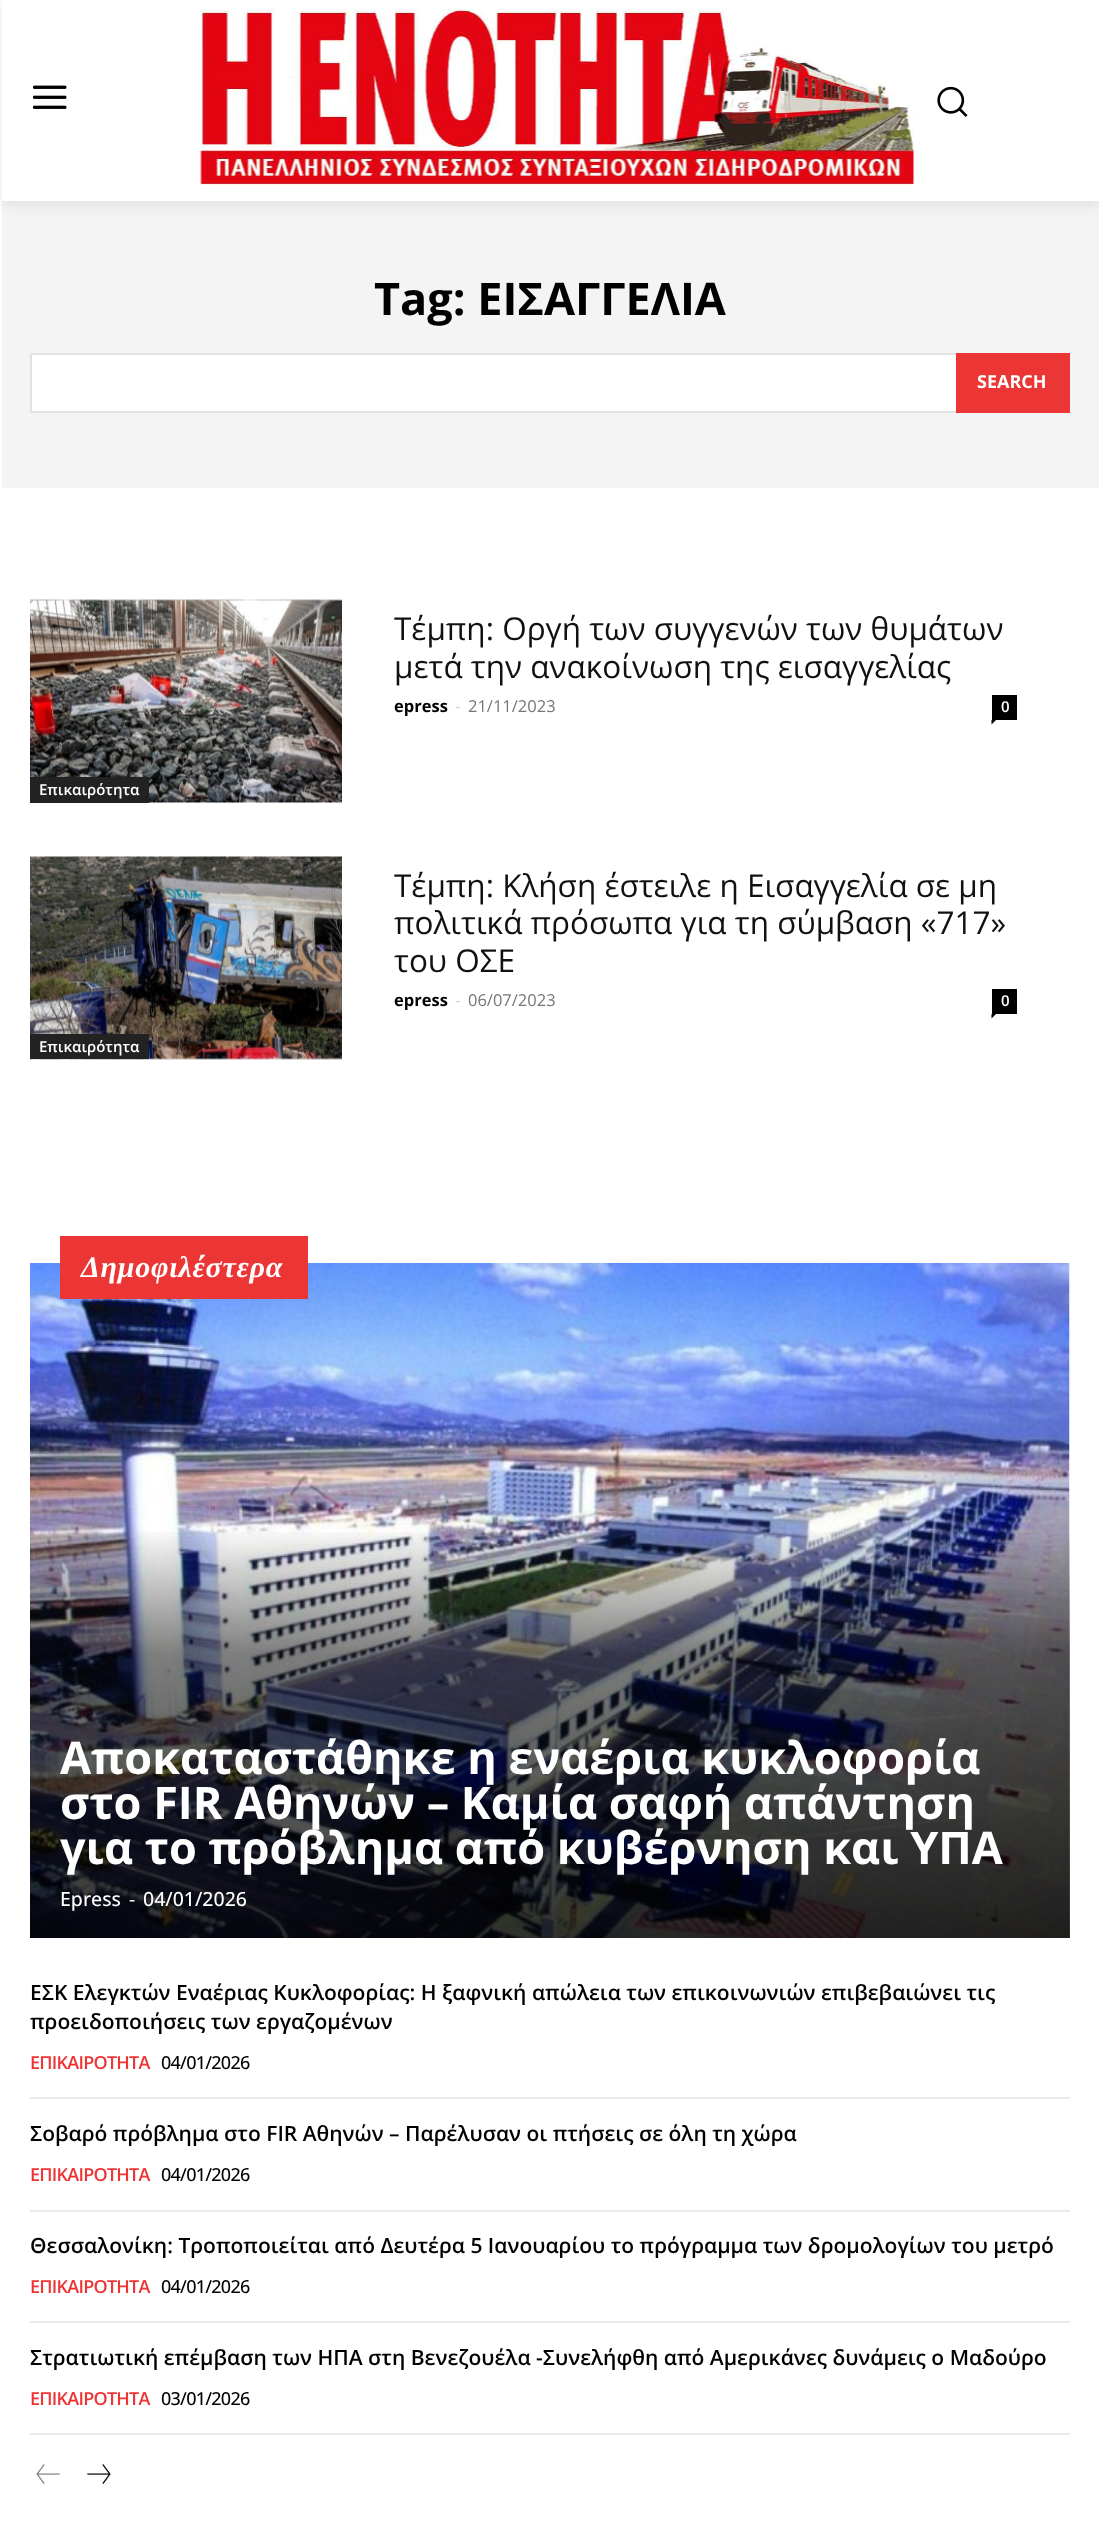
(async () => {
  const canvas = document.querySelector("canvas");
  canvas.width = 1099;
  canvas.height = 2544;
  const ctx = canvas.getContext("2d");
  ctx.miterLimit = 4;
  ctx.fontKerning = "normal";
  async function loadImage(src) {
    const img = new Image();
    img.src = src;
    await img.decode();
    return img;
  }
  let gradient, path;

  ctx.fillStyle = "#ffffff";
  ctx.fillRect(0, 0, 1099, 2544);
  ctx.drawImage(await loadImage("img/1.png"), 33, 85, 34, 24);
  ctx.drawImage(await loadImage("img/2.png"), 200, 9, 714, 176);
  ctx.drawImage(await loadImage("img/3.png"), 937, 86, 31, 31);
  ctx.fillStyle = "#f4f4f4";
  ctx.fillRect(2, 201, 1097, 287);
  ctx.save();
  path = new Path2D("M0 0H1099V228H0ZM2 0H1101V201H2Z");
  ctx.clip(path, "evenodd");
  ctx.fillStyle = "rgba(0, 0, 0, 0.09)";
  ctx.filter = "blur(7.5px)";
  ctx.beginPath();
  ctx.rect(2, 3, 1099, 201);
  ctx.fill();
  ctx.filter = "none";
  ctx.restore();
  ctx.fillStyle = "#ffffff";
  ctx.fillRect(32, 355, 924, 56);
  ctx.strokeStyle = "#e1e1e1";
  ctx.lineWidth = 2;
  ctx.strokeRect(31, 354, 1038, 58);
  ctx.fillStyle = "#ec3535";
  ctx.fillRect(956, 353, 114, 60);
  ctx.fillStyle = "#000000";
  ctx.fillRect(992, 695, 25, 25);
  path = new Path2D("M991.5 720H996L991.5 724.5Z");
  ctx.fill(path);
  ctx.drawImage(await loadImage("img/4.png"), 30, 599, 312, 204);
  ctx.fillStyle = "#222222";
  ctx.fillRect(30, 777, 119, 26);
  ctx.fillStyle = "#000000";
  ctx.fillRect(992, 989, 25, 25);
  path = new Path2D("M991.5 1014H996L991.5 1018.5Z");
  ctx.fill(path);
  ctx.drawImage(await loadImage("img/5.png"), 30, 856, 312, 204);
  ctx.fillStyle = "#222222";
  ctx.fillRect(30, 1034, 119, 25);
  ctx.drawImage(await loadImage("img/6.png"), 30, 1263, 1040, 675);
  ctx.fillStyle = "#ec3535";
  ctx.fillRect(60, 1236, 248, 63);
  gradient = ctx.createLinearGradient(550, 1938, 550, 1263);
  gradient.addColorStop(0, "rgba(0, 0, 0, 0.8)");
  gradient.addColorStop(0.42, "rgba(0, 0, 0, 0.5)");
  gradient.addColorStop(0.61, "rgba(0, 0, 0, 0)");
  gradient.addColorStop(1, "rgba(0, 0, 0, 0)");
  ctx.fillStyle = gradient;
  ctx.fillRect(30, 1532, 1040, 406);
  for (const [x, y, w, h, color] of [
    [30, 2097, 1040, 2, "#eaeaea"],
    [30, 2210, 1040, 2, "#eaeaea"],
    [30, 2321, 1040, 2, "#eaeaea"],
    [30, 2433, 1040, 2, "#eaeaea"],
  ]) {
    ctx.fillStyle = color;
    ctx.fillRect(x, y, w, h);
  }
  ctx.drawImage(await loadImage("img/7.png"), 36, 2464, 24, 20);
  ctx.drawImage(await loadImage("img/8.png"), 87, 2464, 24, 20);
  ctx.font = "bold 45px Open Sans";
  ctx.fillStyle = "#000000";
  ctx.fillText("Tag: ΕΙΣΑΓΓΕΛΙΑ", 374, 315);
  ctx.font = "bold 18px Open Sans";
  ctx.fillStyle = "#ffffff";
  ctx.fillText("SEARCH", 977, 388);
  ctx.font = "31.5px Open Sans";
  ctx.fillStyle = "#111111";
  ctx.fillText("Τέμπη: Οργή των συγγενών των θυμάτων", 394, 640);
  ctx.fillText("μετά την ανακοίνωση της εισαγγελίας", 394, 678);
  ctx.font = "bold 16.5px Open Sans";
  ctx.fillStyle = "#000000";
  ctx.fillText("epress", 394, 712);
  ctx.font = "16.5px Open Sans";
  ctx.fillStyle = "#cccccc";
  ctx.fillText("-", 455, 712);
  ctx.fillStyle = "#767676";
  ctx.fillText("21/11/2023", 468, 712);
  ctx.font = "600 15px Open Sans";
  ctx.fillStyle = "#ffffff";
  ctx.fillText("0", 1001, 712);
  ctx.fillText("Επικαιρότητα", 39, 795);
  ctx.font = "31.5px Open Sans";
  ctx.fillStyle = "#111111";
  for (const [text, x, y] of [
    ["Τέμπη: Κλήση έστειλε η Εισαγγελία σε μη", 394, 897],
    ["πολιτικά πρόσωπα για τη σύμβαση «717»", 394, 934],
    ["του ΟΣΕ", 394, 972],
  ]) {
    ctx.fillText(text, x, y);
  }
  ctx.font = "bold 16.5px Open Sans";
  ctx.fillStyle = "#000000";
  ctx.fillText("epress", 394, 1006);
  ctx.font = "16.5px Open Sans";
  ctx.fillStyle = "#cccccc";
  ctx.fillText("-", 455, 1006);
  ctx.fillStyle = "#767676";
  ctx.fillText("06/07/2023", 468, 1006);
  ctx.font = "600 15px Open Sans";
  ctx.fillStyle = "#ffffff";
  ctx.fillText("0", 1001, 1006);
  ctx.fillText("Επικαιρότητα", 39, 1052);
  ctx.letterSpacing = "0.75px";
  ctx.font = "italic bold 30px Liberation Serif";
  ctx.fillText("Δημοφιλέστερα", 81, 1277);
  ctx.letterSpacing = "0px";
  ctx.font = "bold 45px Open Sans";
  for (const [text, x, y] of [
    ["Αποκαταστάθηκε η εναέρια κυκλοφορία", 60, 1774],
    ["στο FIR Αθηνών – Καμία σαφή απάντηση", 60, 1819],
    ["για το πρόβλημα από κυβέρνηση και ΥΠΑ", 60, 1864],
  ]) {
    ctx.fillText(text, x, y);
  }
  ctx.font = "500 19.5px Open Sans";
  ctx.fillText("Epress", 60, 1906);
  ctx.font = "19.5px Open Sans";
  ctx.fillText("-", 129, 1906);
  ctx.font = "500 19.5px Open Sans";
  ctx.fillText("04/01/2026", 143, 1906);
  ctx.font = "600 21px Open Sans";
  ctx.fillStyle = "#000000";
  ctx.fillText("ΕΣΚ Ελεγκτών Εναέριας Κυκλοφορίας: Η ξαφνική απώλεια των επικοινωνιών επιβεβαιώνει τις", 30, 2000);
  ctx.fillText("προειδοποιήσεις των εργαζομένων", 30, 2029);
  ctx.letterSpacing = "-0.75px";
  ctx.font = "600 18px Open Sans";
  ctx.fillStyle = "#ec3535";
  ctx.fillText("ΕΠΙΚΑΙΡΟΤΗΤΑ", 30, 2069);
  ctx.font = "500 18px Open Sans";
  ctx.fillStyle = "#000000";
  ctx.fillText("04/01/2026", 161, 2069);
  ctx.letterSpacing = "0px";
  ctx.font = "600 21px Open Sans";
  ctx.fillText("Σοβαρό πρόβλημα στο FIR Αθηνών – Παρέλυσαν οι πτήσεις σε όλη τη χώρα", 30, 2141);
  ctx.letterSpacing = "-0.75px";
  ctx.font = "600 18px Open Sans";
  ctx.fillStyle = "#ec3535";
  ctx.fillText("ΕΠΙΚΑΙΡΟΤΗΤΑ", 30, 2181);
  ctx.font = "500 18px Open Sans";
  ctx.fillStyle = "#000000";
  ctx.fillText("04/01/2026", 161, 2181);
  ctx.letterSpacing = "0px";
  ctx.font = "600 21px Open Sans";
  ctx.fillText("Θεσσαλονίκη: Τροποποιείται από Δευτέρα 5 Ιανουαρίου το πρόγραμμα των δρομολογίων του μετρό", 30, 2253);
  ctx.letterSpacing = "-0.75px";
  ctx.font = "600 18px Open Sans";
  ctx.fillStyle = "#ec3535";
  ctx.fillText("ΕΠΙΚΑΙΡΟΤΗΤΑ", 30, 2293);
  ctx.font = "500 18px Open Sans";
  ctx.fillStyle = "#000000";
  ctx.fillText("04/01/2026", 161, 2293);
  ctx.letterSpacing = "0px";
  ctx.font = "600 21px Open Sans";
  ctx.fillText("Στρατιωτική επέμβαση των ΗΠΑ στη Βενεζουέλα -Συνελήφθη από Αμερικάνες δυνάμεις ο Μαδούρο", 30, 2365);
  ctx.letterSpacing = "-0.75px";
  ctx.font = "600 18px Open Sans";
  ctx.fillStyle = "#ec3535";
  ctx.fillText("ΕΠΙΚΑΙΡΟΤΗΤΑ", 30, 2405);
  ctx.font = "500 18px Open Sans";
  ctx.fillStyle = "#000000";
  ctx.fillText("03/01/2026", 161, 2405);
})();
